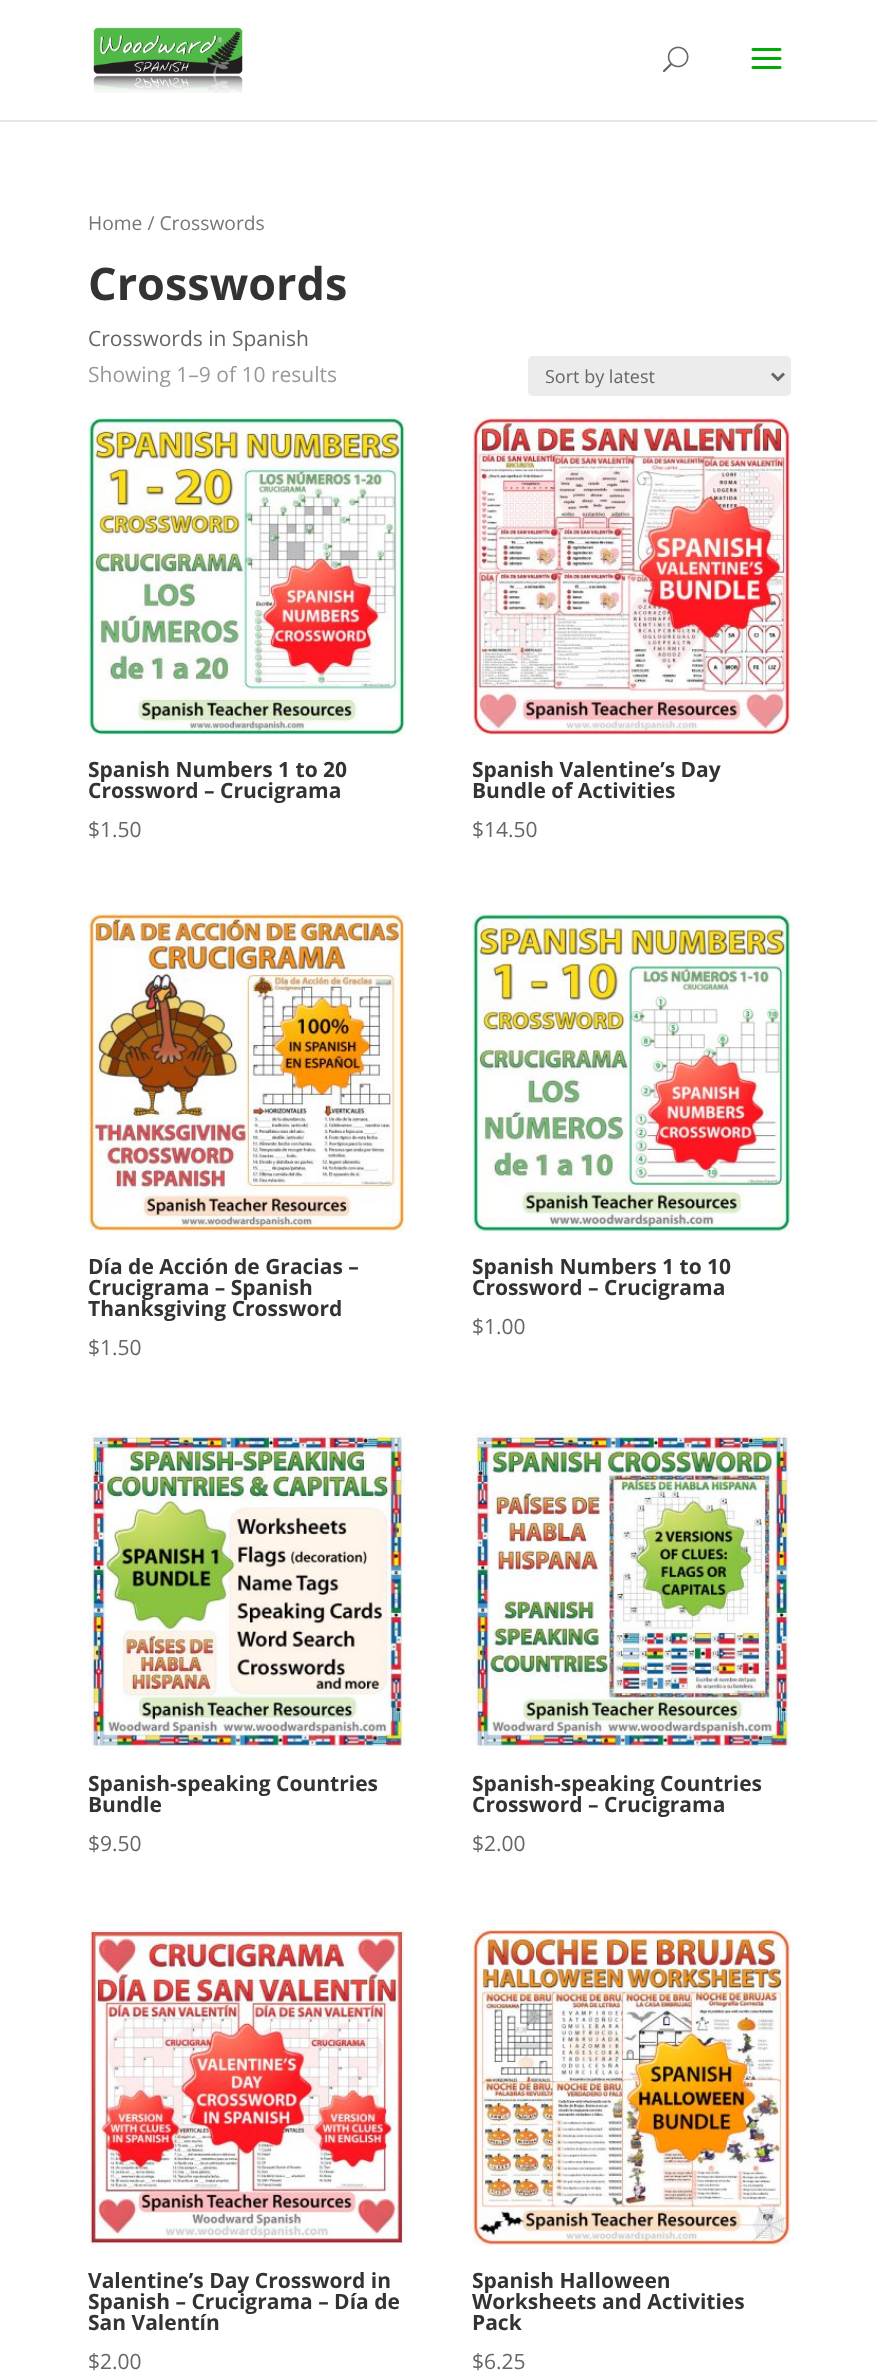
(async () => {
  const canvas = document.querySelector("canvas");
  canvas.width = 877;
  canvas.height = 2379;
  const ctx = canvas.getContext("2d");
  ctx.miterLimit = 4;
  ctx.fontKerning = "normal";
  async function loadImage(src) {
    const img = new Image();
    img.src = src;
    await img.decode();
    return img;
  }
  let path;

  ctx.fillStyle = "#ffffff";
  ctx.fillRect(0, 0, 877, 2379);
  ctx.fillStyle = "#e6e6e6";
  path = new Path2D("M0 120V122H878V2V120Z");
  ctx.fill(path);
  ctx.drawImage(await loadImage("img/1.png"), 93, 27, 150, 66);
  ctx.drawImage(await loadImage("img/2.png"), 662, 46, 27, 27);
  ctx.drawImage(await loadImage("img/3.png"), 751, 48, 31, 21);
  ctx.fillStyle = "#ececec";
  ctx.beginPath();
  ctx.roundRect(528, 356, 263, 40, 5);
  ctx.fill();
  path = new Path2D("M772 373.5L778 379.5L784 373.5");
  ctx.strokeStyle = "#666666";
  ctx.lineWidth = 3;
  ctx.stroke(path);
  ctx.drawImage(await loadImage("img/4.png"), 88, 417, 317, 318);
  ctx.drawImage(await loadImage("img/5.png"), 472, 417, 319, 318);
  ctx.drawImage(await loadImage("img/6.png"), 88, 913, 317, 319);
  ctx.drawImage(await loadImage("img/7.png"), 472, 913, 319, 319);
  ctx.drawImage(await loadImage("img/8.png"), 88, 1432, 317, 317);
  ctx.drawImage(await loadImage("img/9.png"), 472, 1432, 319, 317);
  ctx.drawImage(await loadImage("img/10.png"), 88, 1929, 317, 317);
  ctx.drawImage(await loadImage("img/11.png"), 472, 1929, 319, 317);
  ctx.font = "19.25px Open Sans";
  ctx.fillStyle = "#767676";
  ctx.fillText("Home / Crosswords", 88, 230);
  ctx.font = "bold 45px Open Sans";
  ctx.fillStyle = "#333333";
  ctx.fillText("Crosswords", 88, 300);
  ctx.font = "21px Open Sans";
  ctx.fillStyle = "#666666";
  ctx.fillText("Crosswords in Spanish", 88, 346);
  ctx.fillStyle = "#999999";
  ctx.fillText("Showing 1–9 of 10 results", 88, 382);
  ctx.font = "18px Open Sans";
  ctx.fillStyle = "#666666";
  ctx.fillText("Sort by latest", 545, 383);
  ctx.font = "bold 21px Open Sans";
  ctx.fillStyle = "#333333";
  ctx.fillText("Spanish Numbers 1 to 20", 88, 777);
  ctx.fillText("Crossword – Crucigrama", 88, 798);
  ctx.font = "21px Open Sans";
  ctx.fillStyle = "#666666";
  ctx.fillText("$1.50", 88, 837);
  ctx.font = "bold 21px Open Sans";
  ctx.fillStyle = "#333333";
  ctx.fillText("Spanish Valentine’s Day", 472, 777);
  ctx.fillText("Bundle of Activities", 472, 798);
  ctx.font = "21px Open Sans";
  ctx.fillStyle = "#666666";
  ctx.fillText("$14.50", 472, 837);
  ctx.font = "bold 21px Open Sans";
  ctx.fillStyle = "#333333";
  for (const [text, x, y] of [
    ["Día de Acción de Gracias –", 88, 1274],
    ["Crucigrama – Spanish", 88, 1295],
    ["Thanksgiving Crossword", 88, 1316],
  ]) {
    ctx.fillText(text, x, y);
  }
  ctx.font = "21px Open Sans";
  ctx.fillStyle = "#666666";
  ctx.fillText("$1.50", 88, 1355);
  ctx.font = "bold 21px Open Sans";
  ctx.fillStyle = "#333333";
  ctx.fillText("Spanish Numbers 1 to 10", 472, 1274);
  ctx.fillText("Crossword – Crucigrama", 472, 1295);
  ctx.font = "21px Open Sans";
  ctx.fillStyle = "#666666";
  ctx.fillText("$1.00", 472, 1334);
  ctx.font = "bold 21px Open Sans";
  ctx.fillStyle = "#333333";
  ctx.fillText("Spanish-speaking Countries", 88, 1791);
  ctx.fillText("Bundle", 88, 1812);
  ctx.font = "21px Open Sans";
  ctx.fillStyle = "#666666";
  ctx.fillText("$9.50", 88, 1851);
  ctx.font = "bold 21px Open Sans";
  ctx.fillStyle = "#333333";
  ctx.fillText("Spanish-speaking Countries", 472, 1791);
  ctx.fillText("Crossword – Crucigrama", 472, 1812);
  ctx.font = "21px Open Sans";
  ctx.fillStyle = "#666666";
  ctx.fillText("$2.00", 472, 1851);
  ctx.font = "bold 21px Open Sans";
  ctx.fillStyle = "#333333";
  for (const [text, x, y] of [
    ["Valentine’s Day Crossword in", 88, 2288],
    ["Spanish – Crucigrama – Día de", 88, 2309],
    ["San Valentín", 88, 2330],
  ]) {
    ctx.fillText(text, x, y);
  }
  ctx.font = "21px Open Sans";
  ctx.fillStyle = "#666666";
  ctx.fillText("$2.00", 88, 2369);
  ctx.font = "bold 21px Open Sans";
  ctx.fillStyle = "#333333";
  for (const [text, x, y] of [
    ["Spanish Halloween", 472, 2288],
    ["Worksheets and Activities", 472, 2309],
    ["Pack", 472, 2330],
  ]) {
    ctx.fillText(text, x, y);
  }
  ctx.font = "21px Open Sans";
  ctx.fillStyle = "#666666";
  ctx.fillText("$6.25", 472, 2369);
})();
